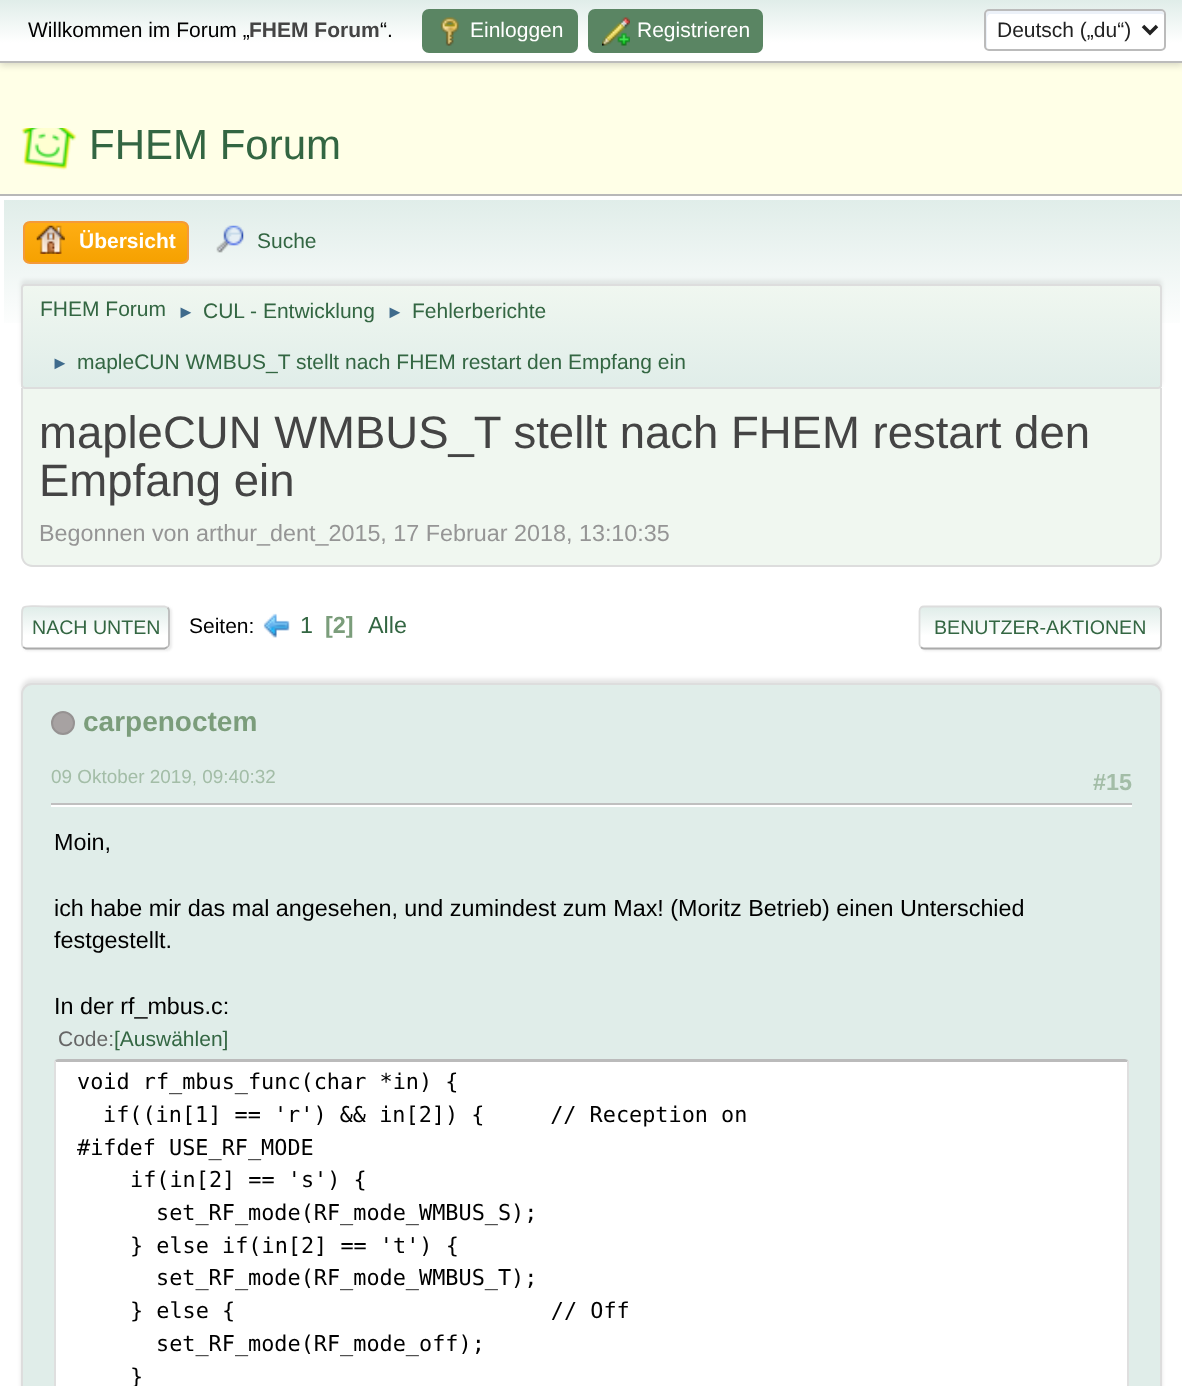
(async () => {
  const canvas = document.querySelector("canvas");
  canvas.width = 1182;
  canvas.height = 1386;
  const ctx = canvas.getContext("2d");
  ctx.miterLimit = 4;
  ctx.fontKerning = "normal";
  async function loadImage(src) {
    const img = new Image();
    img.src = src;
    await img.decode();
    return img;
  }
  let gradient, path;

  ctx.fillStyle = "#ffffe7";
  ctx.fillRect(0, 0, 1182, 1386);
  ctx.fillStyle = "rgba(0, 0, 0, 0.16)";
  ctx.filter = "blur(3.5px)";
  ctx.beginPath();
  ctx.rect(0, 2, 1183, 63);
  ctx.fill();
  ctx.filter = "none";
  gradient = ctx.createLinearGradient(592, 0, 592, 61);
  gradient.addColorStop(0, "#e0ede9");
  gradient.addColorStop(0.7, "#ffffff");
  ctx.fillStyle = gradient;
  ctx.fillRect(0, 0, 1182, 61);
  ctx.fillStyle = "#bbbbbb";
  ctx.fillRect(0, 61, 1182, 2);
  ctx.fillStyle = "#5a8563";
  ctx.beginPath();
  ctx.roundRect(423, 10, 154, 42, 6);
  ctx.fill();
  ctx.strokeStyle = "#5a8563";
  ctx.lineWidth = 2;
  ctx.stroke();
  ctx.drawImage(await loadImage("img/1.png"), 440, 17, 19, 29);
  ctx.beginPath();
  ctx.roundRect(589, 10, 173, 42, 6);
  ctx.fill();
  ctx.stroke();
  ctx.drawImage(await loadImage("img/2.png"), 602, 17, 28, 29);
  ctx.fillStyle = "#ffffff";
  ctx.beginPath();
  ctx.roundRect(984, 9, 182, 42, 5);
  ctx.fill();
  ctx.fillStyle = "#ecf1f8";
  path = new Path2D("M990 14H1162L1164 15C1164 13 1162 11 1160 11H989C987 11 985 13 985 15V45C985 46 986 48 987 48V18C987 16 989 14 990 14Z");
  ctx.fill(path);
  ctx.beginPath();
  ctx.roundRect(985, 10, 180, 40, 4);
  ctx.strokeStyle = "#bbbbbb";
  ctx.stroke();
  path = new Path2D("M1143 26L1150 33L1157 26");
  ctx.strokeStyle = "#222222";
  ctx.lineWidth = 3.5;
  ctx.stroke(path);
  ctx.drawImage(await loadImage("img/3.png"), 21, 128, 56, 42);
  ctx.fillStyle = "#ffffff";
  ctx.fillRect(0, 196, 1182, 1190);
  ctx.fillStyle = "#b8b8b8";
  ctx.fillRect(0, 194, 1182, 2);
  gradient = ctx.createLinearGradient(592, 199, 592, 392);
  gradient.addColorStop(0, "#e0ede9");
  gradient.addColorStop(0.7, "#ffffff");
  ctx.fillStyle = gradient;
  ctx.fillRect(4, 200, 1176, 123);
  ctx.save();
  ctx.beginPath();
  ctx.roundRect(23, 221, 166, 43, 7);
  ctx.clip();
  gradient = ctx.createLinearGradient(106, 222, 106, 263);
  gradient.addColorStop(0, "#ffae14");
  gradient.addColorStop(1, "#f5a100");
  ctx.fillStyle = gradient;
  ctx.fillRect(23, 222, 166, 41);
  ctx.restore();
  ctx.beginPath();
  ctx.roundRect(24, 222, 164, 41, 6);
  ctx.strokeStyle = "#f49a3a";
  ctx.lineWidth = 2;
  ctx.stroke();
  ctx.drawImage(await loadImage("img/4.png"), 36, 225, 29, 29);
  ctx.drawImage(await loadImage("img/5.png"), 216, 225, 28, 28);
  ctx.fillStyle = "rgba(0, 0, 0, 0.08)";
  ctx.filter = "blur(2px)";
  ctx.beginPath();
  ctx.roundRect(21, 280, 1141, 105, 4);
  ctx.fill();
  ctx.filter = "none";
  ctx.save();
  ctx.beginPath();
  ctx.roundRect(21, 284, 1141, 105, 4);
  ctx.clip();
  gradient = ctx.createLinearGradient(592, 285, 592, 387);
  gradient.addColorStop(0, "#f0f7f0");
  gradient.addColorStop(1, "#e0ede9");
  ctx.fillStyle = gradient;
  ctx.fillRect(21, 285, 1141, 102);
  ctx.restore();
  ctx.beginPath();
  ctx.roundRect(22, 285, 1139, 103, 3);
  ctx.strokeStyle = "#dddddd";
  ctx.stroke();
  ctx.fillStyle = "#f0f7f0";
  ctx.beginPath();
  ctx.roundRect(21, 389, 1141, 178, [0, 0, 12, 12]);
  ctx.fill();
  ctx.fillStyle = "#dddddd";
  path = new Path2D("M21 388H1162V555C1162 562 1157 567 1150 567H33C26 567 21 562 21 555ZM23 388H1160V555C1160 561 1156 565 1150 565H33C27 565 23 561 23 555Z");
  ctx.fill(path, "evenodd");
  ctx.fillStyle = "rgba(221, 221, 221, 0.57)";
  ctx.filter = "blur(1px)";
  ctx.beginPath();
  ctx.roundRect(23, 607, 149, 44, 5);
  ctx.fill();
  ctx.filter = "none";
  ctx.save();
  ctx.beginPath();
  ctx.roundRect(21, 606, 149, 43, 5);
  ctx.clip();
  gradient = ctx.createLinearGradient(95, 607, 95, 648);
  gradient.addColorStop(0, "#e0ede9");
  gradient.addColorStop(0.7, "#ffffff");
  ctx.fillStyle = gradient;
  ctx.fillRect(21, 607, 149, 41);
  gradient = ctx.createLinearGradient(95, 648, 95, 688);
  gradient.addColorStop(0, "#e0ede9");
  gradient.addColorStop(0.7, "#ffffff");
  ctx.fillStyle = gradient;
  ctx.fillRect(21, 648, 149, 1);
  ctx.restore();
  path = new Path2D("M167.5 607.5C168.5 608.5 169 609.5 169 611V644C169 645 168.5 646.5 167.5 647");
  ctx.strokeStyle = "#bbbbbb";
  ctx.lineWidth = 1.8;
  ctx.stroke(path);
  path = new Path2D("M167.5 647L164.5 648.5H26L23 647");
  ctx.strokeStyle = "#aaaaaa";
  ctx.stroke(path);
  ctx.save();
  ctx.beginPath();
  ctx.rect(21, 593, 1141, 69);
  ctx.clip();
  path = new Path2D("M23 647C21 645 22 641 22 638.5V627.5C22 600.5 18.5 606.5 49.5 606.5H164.5L167.5 607.5");
  ctx.strokeStyle = "#dddddd";
  ctx.stroke(path);
  ctx.restore();
  ctx.drawImage(await loadImage("img/6.png"), 263, 613, 27, 25);
  ctx.save();
  ctx.beginPath();
  ctx.rect(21, 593, 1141, 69);
  ctx.clip();
  ctx.filter = "blur(1px)";
  ctx.beginPath();
  ctx.roundRect(921, 607, 243, 44, 5);
  ctx.fill();
  ctx.filter = "none";
  ctx.restore();
  ctx.save();
  ctx.beginPath();
  ctx.roundRect(919, 606, 243, 43, 5);
  ctx.clip();
  gradient = ctx.createLinearGradient(1040, 607, 1040, 648);
  gradient.addColorStop(0, "#e0ede9");
  gradient.addColorStop(0.7, "#ffffff");
  ctx.fillStyle = gradient;
  ctx.fillRect(919, 607, 243, 41);
  ctx.restore();
  path = new Path2D("M1160 607.5C1160.5 608.5 1161 609.5 1161 611V644C1161 645 1160.5 646.5 1160 647");
  ctx.strokeStyle = "#bbbbbb";
  ctx.stroke(path);
  path = new Path2D("M1160 647C1159 648 1158 648.5 1157 648.5H924C923 648.5 921.5 648 921 647");
  ctx.strokeStyle = "#aaaaaa";
  ctx.stroke(path);
  path = new Path2D("M921 647C920 646.5 919.5 645 919.5 644V611C919.5 609.5 920 608.5 921 607.5C921.5 607 923 606.5 924 606.5H1157C1158 606.5 1159 607 1160 607.5");
  ctx.strokeStyle = "#dddddd";
  ctx.stroke(path);
  ctx.fillStyle = "rgba(0, 0, 0, 0.1)";
  ctx.filter = "blur(2px)";
  ctx.beginPath();
  ctx.roundRect(21, 679, 1141, 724, 11);
  ctx.fill();
  ctx.filter = "none";
  ctx.fillStyle = "#e0ede9";
  ctx.beginPath();
  ctx.roundRect(22, 684, 1139, 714, 10);
  ctx.fill();
  ctx.lineWidth = 2;
  ctx.stroke();
  ctx.fillStyle = "#a7a2a2";
  ctx.beginPath();
  ctx.arc(63, 723, 11, 0, Math.PI * 2);
  ctx.fill();
  ctx.strokeStyle = "#969292";
  ctx.stroke();
  ctx.fillStyle = "#ffffff";
  ctx.fillRect(51, 805, 1081, 2);
  ctx.fillStyle = "#bfbfbf";
  ctx.fillRect(51, 803, 1081, 2);
  ctx.fillStyle = "#ffffff";
  path = new Path2D("M58 1062H1127V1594H56V1062Z");
  ctx.fill(path);
  ctx.fillStyle = "#bbbbbb";
  path = new Path2D("M58 1059L55 1060L56 1062H1127L1128 1060L1125 1059Z");
  ctx.fill(path);
  ctx.fillStyle = "#dfdfdf";
  path = new Path2D("M1129 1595L1128 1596L1127 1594V1062L1128 1060L1129 1061Z");
  ctx.fill(path);
  path = new Path2D("M54 1061L55 1060L56 1062V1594L55 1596L54 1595Z");
  ctx.fill(path);
  ctx.font = "21px Liberation Sans";
  ctx.fillStyle = "#000000";
  ctx.fillText("Willkommen im Forum „", 28, 37);
  ctx.font = "bold 21px Liberation Sans";
  ctx.fillStyle = "#444444";
  ctx.fillText("FHEM Forum", 249, 37);
  ctx.font = "21px Liberation Sans";
  ctx.fillStyle = "#000000";
  ctx.fillText("“.", 380, 37);
  ctx.fillStyle = "#ffffff";
  ctx.fillText("Einloggen", 470, 37);
  ctx.fillText("Registrieren", 637, 37);
  ctx.fillStyle = "#222222";
  ctx.fillText("Deutsch („du“)", 997, 37);
  ctx.font = "42px Liberation Sans";
  ctx.fillStyle = "#336642";
  ctx.fillText("FHEM Forum", 89, 159);
  ctx.font = "bold 21px Liberation Sans";
  ctx.fillStyle = "#ffffff";
  ctx.fillText("Übersicht", 79, 248);
  ctx.font = "21px Liberation Sans";
  ctx.fillStyle = "#336642";
  ctx.fillText("Suche", 257, 248);
  ctx.fillText("FHEM Forum", 40, 316);
  ctx.font = "18px Liberation Sans";
  ctx.fillStyle = "#3f6b8c";
  ctx.fillText("►", 177, 318);
  ctx.font = "21px Liberation Sans";
  ctx.fillStyle = "#336642";
  ctx.fillText("CUL - Entwicklung", 203, 318);
  ctx.font = "18px Liberation Sans";
  ctx.fillStyle = "#3f6b8c";
  ctx.fillText("►", 386, 318);
  ctx.font = "21px Liberation Sans";
  ctx.fillStyle = "#336642";
  ctx.fillText("Fehlerberichte", 412, 318);
  ctx.font = "18px Liberation Sans";
  ctx.fillStyle = "#3f6b8c";
  ctx.fillText("►", 51, 369);
  ctx.font = "21px Liberation Sans";
  ctx.fillStyle = "#336642";
  ctx.fillText("mapleCUN WMBUS_T stellt nach FHEM restart den Empfang ein", 77, 369);
  ctx.font = "45.5px Liberation Sans";
  ctx.fillStyle = "#444444";
  ctx.fillText("mapleCUN WMBUS_T stellt nach FHEM restart den", 39, 448);
  ctx.fillText("Empfang ein", 39, 496);
  ctx.font = "23.35px Liberation Sans";
  ctx.fillStyle = "#959595";
  ctx.fillText("Begonnen von arthur_dent_2015, 17 Februar 2018, 13:10:35", 39, 541);
  ctx.font = "19.6px Liberation Sans";
  ctx.fillStyle = "#336642";
  ctx.fillText("NACH UNTEN", 32, 634);
  ctx.font = "21px Liberation Sans";
  ctx.fillStyle = "#000000";
  ctx.fillText("Seiten:", 189, 633);
  ctx.font = "23.35px Liberation Sans";
  ctx.fillStyle = "#336642";
  ctx.fillText("1", 300, 633);
  ctx.font = "bold 23.35px Liberation Sans";
  ctx.fillStyle = "#7b9d7b";
  ctx.fillText("[2]", 325, 633);
  ctx.font = "23.35px Liberation Sans";
  ctx.fillStyle = "#336642";
  ctx.fillText("Alle", 368, 633);
  ctx.font = "19.6px Liberation Sans";
  ctx.fillText("BENUTZER-AKTIONEN", 934, 634);
  ctx.font = "bold 28px Liberation Sans";
  ctx.fillStyle = "#7b9d7b";
  ctx.fillText("carpenoctem", 83, 731);
  ctx.font = "18.9px Liberation Sans";
  ctx.fillStyle = "#a3bda7";
  ctx.fillText("09 Oktober 2019, 09:40:32", 51, 783);
  ctx.font = "bold 23.35px Liberation Sans";
  ctx.fillText("#15", 1093, 790);
  ctx.font = "23.35px Liberation Sans";
  ctx.fillStyle = "#000000";
  for (const [text, x, y] of [
    ["Moin,", 54, 850],
    ["ich habe mir das mal angesehen, und zumindest zum Max! (Moritz Betrieb) einen Unterschied", 54, 916],
    ["festgestellt.", 54, 948],
    ["In der rf_mbus.c:", 54, 1014],
  ]) {
    ctx.fillText(text, x, y);
  }
  ctx.font = "21px Liberation Sans";
  ctx.fillStyle = "#666666";
  ctx.fillText("Code:", 58, 1046);
  ctx.fillStyle = "#336642";
  ctx.fillText("[Auswählen]", 114, 1046);
  ctx.font = "21.85px DejaVu Sans Mono";
  ctx.fillStyle = "#000000";
  for (const [text, x, y] of [
    ["void rf_mbus_func(char *in) {", 77, 1089],
    ["if((in[1] == 'r') && in[2]) {     // Reception on", 103, 1122],
    ["#ifdef USE_RF_MODE", 77, 1155],
    ["if(in[2] == 's') {", 130, 1187],
    ["set_RF_mode(RF_mode_WMBUS_S);", 156, 1220],
    ["} else if(in[2] == 't') {", 130, 1253],
    ["set_RF_mode(RF_mode_WMBUS_T);", 156, 1285],
    ["} else {                        // Off", 130, 1318],
    ["set_RF_mode(RF_mode_off);", 156, 1351],
    ["}", 130, 1384],
  ]) {
    ctx.fillText(text, x, y);
  }
})();
